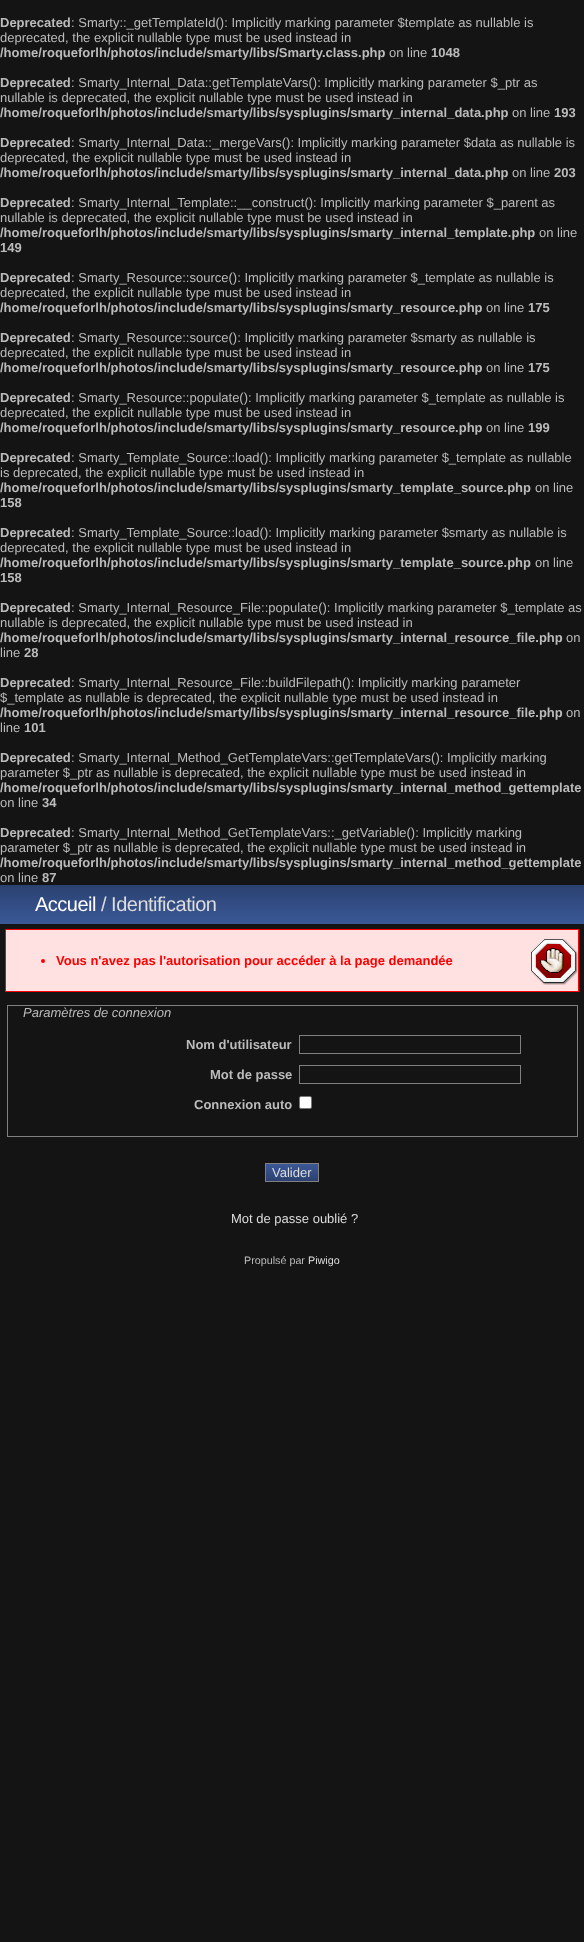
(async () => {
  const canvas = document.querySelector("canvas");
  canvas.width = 584;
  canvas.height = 1942;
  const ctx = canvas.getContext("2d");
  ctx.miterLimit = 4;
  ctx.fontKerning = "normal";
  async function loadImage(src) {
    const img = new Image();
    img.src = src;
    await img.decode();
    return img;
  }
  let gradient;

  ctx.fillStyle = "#141414";
  ctx.fillRect(0, 0, 584, 1942);
  gradient = ctx.createLinearGradient(292, 885, 292, 924);
  gradient.addColorStop(0, "#2b4170");
  gradient.addColorStop(1, "#3b5998");
  ctx.fillStyle = gradient;
  ctx.fillRect(0, 885, 584, 39);
  ctx.fillStyle = "#ffe1e1";
  ctx.fillRect(6, 930, 572, 61);
  ctx.drawImage(await loadImage("img/1.png"), 531, 939, 47, 46);
  ctx.strokeStyle = "#ff0000";
  ctx.strokeRect(5.5, 929.5, 573, 62);
  ctx.fillStyle = "#ff0000";
  ctx.beginPath();
  ctx.arc(43, 961, 2, 0, Math.PI * 2);
  ctx.fill();
  ctx.strokeStyle = "#808080";
  ctx.strokeRect(7.5, 1005.5, 570, 131);
  ctx.strokeRect(299.5, 1035.5, 221, 18);
  ctx.strokeRect(299.5, 1065.5, 221, 18);
  ctx.fillStyle = "#ffffff";
  ctx.beginPath();
  ctx.roundRect(299.5, 1096.5, 12, 12, 1.5);
  ctx.fill();
  ctx.strokeStyle = "#767676";
  ctx.stroke();
  gradient = ctx.createLinearGradient(292, 1164, 292, 1181);
  gradient.addColorStop(0, "#3b5998");
  gradient.addColorStop(1, "#2b4170");
  ctx.fillStyle = gradient;
  ctx.fillRect(266, 1164, 52, 17);
  ctx.strokeStyle = "#808080";
  ctx.strokeRect(265.5, 1163.5, 53, 18);
  ctx.font = "bold 13px Liberation Sans";
  ctx.fillStyle = "#bbbbbb";
  ctx.fillText("Deprecated", 0, 27);
  ctx.font = "13px Liberation Sans";
  ctx.fillText(": Smarty::_getTemplateId(): Implicitly marking parameter $template as nullable is", 71, 27);
  ctx.fillText("deprecated, the explicit nullable type must be used instead in", 0, 42);
  ctx.font = "bold 13px Liberation Sans";
  ctx.fillText("/home/roqueforlh/photos/include/smarty/libs/Smarty.class.php", 0, 57);
  ctx.font = "13px Liberation Sans";
  ctx.fillText("on line", 389, 57);
  ctx.font = "bold 13px Liberation Sans";
  ctx.fillText("1048", 431, 57);
  ctx.fillText("Deprecated", 0, 87);
  ctx.font = "13px Liberation Sans";
  ctx.fillText(": Smarty_Internal_Data::getTemplateVars(): Implicitly marking parameter $_ptr as", 71, 87);
  ctx.fillText("nullable is deprecated, the explicit nullable type must be used instead in", 0, 102);
  ctx.font = "bold 13px Liberation Sans";
  ctx.fillText("/home/roqueforlh/photos/include/smarty/libs/sysplugins/smarty_internal_data.php", 0, 117);
  ctx.font = "13px Liberation Sans";
  ctx.fillText("on line", 512, 117);
  ctx.font = "bold 13px Liberation Sans";
  ctx.fillText("193", 554, 117);
  ctx.fillText("Deprecated", 0, 147);
  ctx.font = "13px Liberation Sans";
  ctx.fillText(": Smarty_Internal_Data::_mergeVars(): Implicitly marking parameter $data as nullable is", 71, 147);
  ctx.fillText("deprecated, the explicit nullable type must be used instead in", 0, 162);
  ctx.font = "bold 13px Liberation Sans";
  ctx.fillText("/home/roqueforlh/photos/include/smarty/libs/sysplugins/smarty_internal_data.php", 0, 177);
  ctx.font = "13px Liberation Sans";
  ctx.fillText("on line", 512, 177);
  ctx.font = "bold 13px Liberation Sans";
  ctx.fillText("203", 554, 177);
  ctx.fillText("Deprecated", 0, 207);
  ctx.font = "13px Liberation Sans";
  ctx.fillText(": Smarty_Internal_Template::__construct(): Implicitly marking parameter $_parent as", 71, 207);
  ctx.fillText("nullable is deprecated, the explicit nullable type must be used instead in", 0, 222);
  ctx.font = "bold 13px Liberation Sans";
  ctx.fillText("/home/roqueforlh/photos/include/smarty/libs/sysplugins/smarty_internal_template.php", 0, 237);
  ctx.font = "13px Liberation Sans";
  ctx.fillText("on line", 539, 237);
  ctx.font = "bold 13px Liberation Sans";
  ctx.fillText("149", 0, 252);
  ctx.fillText("Deprecated", 0, 282);
  ctx.font = "13px Liberation Sans";
  ctx.fillText(": Smarty_Resource::source(): Implicitly marking parameter $_template as nullable is", 71, 282);
  ctx.fillText("deprecated, the explicit nullable type must be used instead in", 0, 297);
  ctx.font = "bold 13px Liberation Sans";
  ctx.fillText("/home/roqueforlh/photos/include/smarty/libs/sysplugins/smarty_resource.php", 0, 312);
  ctx.font = "13px Liberation Sans";
  ctx.fillText("on line", 486, 312);
  ctx.font = "bold 13px Liberation Sans";
  ctx.fillText("175", 528, 312);
  ctx.fillText("Deprecated", 0, 342);
  ctx.font = "13px Liberation Sans";
  ctx.fillText(": Smarty_Resource::source(): Implicitly marking parameter $smarty as nullable is", 71, 342);
  ctx.fillText("deprecated, the explicit nullable type must be used instead in", 0, 357);
  ctx.font = "bold 13px Liberation Sans";
  ctx.fillText("/home/roqueforlh/photos/include/smarty/libs/sysplugins/smarty_resource.php", 0, 372);
  ctx.font = "13px Liberation Sans";
  ctx.fillText("on line", 486, 372);
  ctx.font = "bold 13px Liberation Sans";
  ctx.fillText("175", 528, 372);
  ctx.fillText("Deprecated", 0, 402);
  ctx.font = "13px Liberation Sans";
  ctx.fillText(": Smarty_Resource::populate(): Implicitly marking parameter $_template as nullable is", 71, 402);
  ctx.fillText("deprecated, the explicit nullable type must be used instead in", 0, 417);
  ctx.font = "bold 13px Liberation Sans";
  ctx.fillText("/home/roqueforlh/photos/include/smarty/libs/sysplugins/smarty_resource.php", 0, 432);
  ctx.font = "13px Liberation Sans";
  ctx.fillText("on line", 486, 432);
  ctx.font = "bold 13px Liberation Sans";
  ctx.fillText("199", 528, 432);
  ctx.fillText("Deprecated", 0, 462);
  ctx.font = "13px Liberation Sans";
  ctx.fillText(": Smarty_Template_Source::load(): Implicitly marking parameter $_template as nullable", 71, 462);
  ctx.fillText("is deprecated, the explicit nullable type must be used instead in", 0, 477);
  ctx.font = "bold 13px Liberation Sans";
  ctx.fillText("/home/roqueforlh/photos/include/smarty/libs/sysplugins/smarty_template_source.php", 0, 492);
  ctx.font = "13px Liberation Sans";
  ctx.fillText("on line", 535, 492);
  ctx.font = "bold 13px Liberation Sans";
  ctx.fillText("158", 0, 507);
  ctx.fillText("Deprecated", 0, 537);
  ctx.font = "13px Liberation Sans";
  ctx.fillText(": Smarty_Template_Source::load(): Implicitly marking parameter $smarty as nullable is", 71, 537);
  ctx.fillText("deprecated, the explicit nullable type must be used instead in", 0, 552);
  ctx.font = "bold 13px Liberation Sans";
  ctx.fillText("/home/roqueforlh/photos/include/smarty/libs/sysplugins/smarty_template_source.php", 0, 567);
  ctx.font = "13px Liberation Sans";
  ctx.fillText("on line", 535, 567);
  ctx.font = "bold 13px Liberation Sans";
  ctx.fillText("158", 0, 582);
  ctx.fillText("Deprecated", 0, 612);
  ctx.font = "13px Liberation Sans";
  ctx.fillText(": Smarty_Internal_Resource_File::populate(): Implicitly marking parameter $_template as", 71, 612);
  ctx.fillText("nullable is deprecated, the explicit nullable type must be used instead in", 0, 627);
  ctx.font = "bold 13px Liberation Sans";
  ctx.fillText("/home/roqueforlh/photos/include/smarty/libs/sysplugins/smarty_internal_resource_file.php", 0, 642);
  ctx.font = "13px Liberation Sans";
  ctx.fillText("on", 566, 642);
  ctx.fillText("line", 0, 657);
  ctx.font = "bold 13px Liberation Sans";
  ctx.fillText("28", 24, 657);
  ctx.fillText("Deprecated", 0, 687);
  ctx.font = "13px Liberation Sans";
  ctx.fillText(": Smarty_Internal_Resource_File::buildFilepath(): Implicitly marking parameter", 71, 687);
  ctx.fillText("$_template as nullable is deprecated, the explicit nullable type must be used instead in", 0, 702);
  ctx.font = "bold 13px Liberation Sans";
  ctx.fillText("/home/roqueforlh/photos/include/smarty/libs/sysplugins/smarty_internal_resource_file.php", 0, 717);
  ctx.font = "13px Liberation Sans";
  ctx.fillText("on", 566, 717);
  ctx.fillText("line", 0, 732);
  ctx.font = "bold 13px Liberation Sans";
  ctx.fillText("101", 24, 732);
  ctx.fillText("Deprecated", 0, 762);
  ctx.font = "13px Liberation Sans";
  ctx.fillText(": Smarty_Internal_Method_GetTemplateVars::getTemplateVars(): Implicitly marking", 71, 762);
  ctx.fillText("parameter $_ptr as nullable is deprecated, the explicit nullable type must be used instead in", 0, 777);
  ctx.font = "bold 13px Liberation Sans";
  ctx.fillText("/home/roqueforlh/photos/include/smarty/libs/sysplugins/smarty_internal_method_gettemplate", 0, 792);
  ctx.font = "13px Liberation Sans";
  ctx.fillText("on line", 0, 807);
  ctx.font = "bold 13px Liberation Sans";
  ctx.fillText("34", 42, 807);
  ctx.fillText("Deprecated", 0, 837);
  ctx.font = "13px Liberation Sans";
  ctx.fillText(": Smarty_Internal_Method_GetTemplateVars::_getVariable(): Implicitly marking", 71, 837);
  ctx.fillText("parameter $_ptr as nullable is deprecated, the explicit nullable type must be used instead in", 0, 852);
  ctx.font = "bold 13px Liberation Sans";
  ctx.fillText("/home/roqueforlh/photos/include/smarty/libs/sysplugins/smarty_internal_method_gettemplate", 0, 867);
  ctx.font = "13px Liberation Sans";
  ctx.fillText("on line", 0, 882);
  ctx.font = "bold 13px Liberation Sans";
  ctx.fillText("87", 42, 882);
  ctx.letterSpacing = "-0.5px";
  ctx.font = "20px Liberation Sans";
  ctx.fillStyle = "#ffffff";
  ctx.fillText("Accueil", 35, 911);
  ctx.fillStyle = "#dddddd";
  ctx.fillText("/ Identification", 101, 911);
  ctx.letterSpacing = "0px";
  ctx.font = "bold 13px Liberation Sans";
  ctx.fillStyle = "#ff0000";
  ctx.fillText("Vous n'avez pas l'autorisation pour accéder à la page demandée", 56, 965);
  ctx.font = "italic 13px Liberation Sans";
  ctx.fillStyle = "#bbbbbb";
  ctx.fillText("Paramètres de connexion", 23, 1017);
  ctx.font = "bold 13px Liberation Sans";
  for (const [text, x, y] of [
    ["Nom d'utilisateur", 186, 1049],
    ["Mot de passe", 210, 1079],
    ["Connexion auto", 194, 1109],
  ]) {
    ctx.fillText(text, x, y);
  }
  ctx.font = "13px Liberation Sans";
  ctx.fillStyle = "#dddddd";
  ctx.fillText("Valider", 272, 1177);
  ctx.fillText("Mot de passe oublié ?", 231, 1223);
  ctx.font = "10.75px Liberation Sans";
  ctx.fillStyle = "#bbbbbb";
  ctx.fillText("Propulsé par", 244, 1264);
  ctx.fillStyle = "#dddddd";
  ctx.fillText("Piwigo", 308, 1264);
})();
